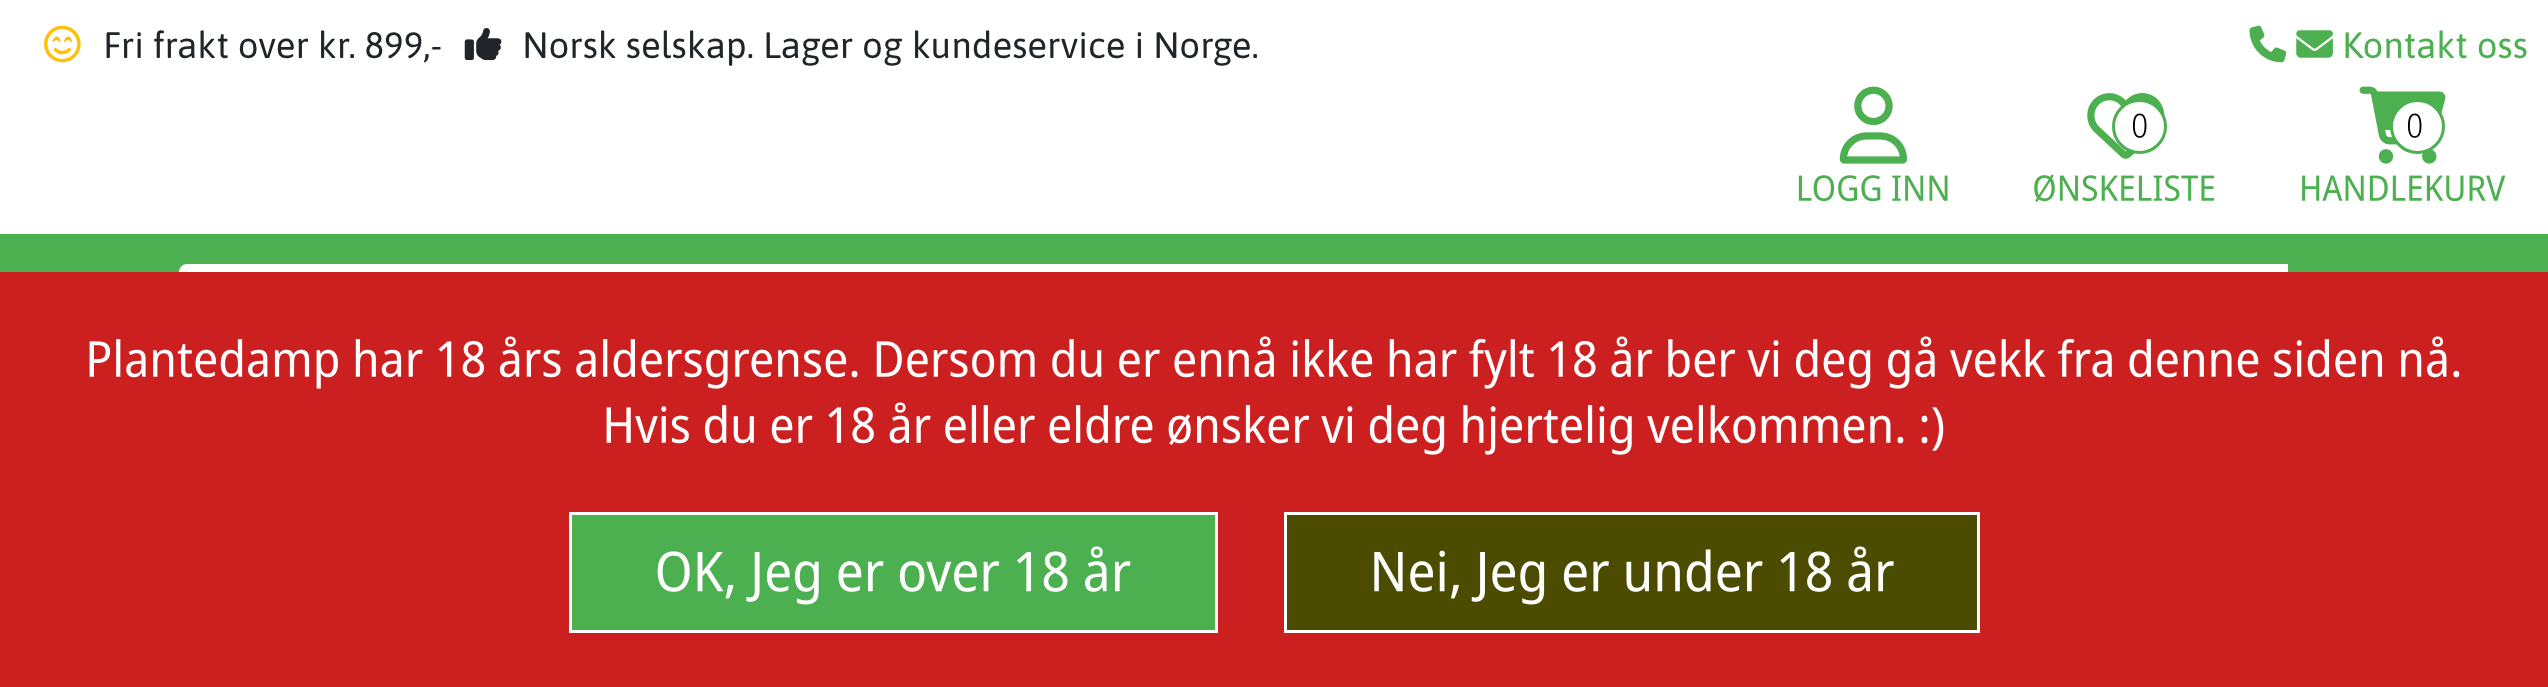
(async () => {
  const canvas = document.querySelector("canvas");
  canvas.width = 2548;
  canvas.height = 687;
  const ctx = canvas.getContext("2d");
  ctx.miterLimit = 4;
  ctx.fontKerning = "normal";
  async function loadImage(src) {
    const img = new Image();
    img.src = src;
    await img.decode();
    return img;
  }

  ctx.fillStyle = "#ffffff";
  ctx.fillRect(0, 0, 2548, 687);
  ctx.drawImage(await loadImage("img/1.png"), 44, 25, 37, 38);
  ctx.drawImage(await loadImage("img/2.png"), 464, 28, 38, 33);
  ctx.drawImage(await loadImage("img/3.png"), 2249, 25, 38, 38);
  ctx.drawImage(await loadImage("img/4.png"), 2296, 30, 37, 28);
  ctx.drawImage(await loadImage("img/5.png"), 1839, 86, 69, 78);
  ctx.drawImage(await loadImage("img/6.png"), 1798, 175, 150, 27);
  ctx.drawImage(await loadImage("img/7.png"), 2087, 93, 78, 66);
  ctx.beginPath();
  ctx.arc(2139.5, 126.5, 26, 0, Math.PI * 2);
  ctx.fill();
  ctx.strokeStyle = "#4caf50";
  ctx.lineWidth = 3;
  ctx.stroke();
  ctx.drawImage(await loadImage("img/8.png"), 2132, 113, 15, 25);
  ctx.drawImage(await loadImage("img/9.png"), 2034, 174, 180, 28);
  ctx.drawImage(await loadImage("img/10.png"), 2359, 86, 87, 78);
  ctx.beginPath();
  ctx.arc(2417.5, 126.5, 26, 0, Math.PI * 2);
  ctx.fill();
  ctx.stroke();
  ctx.drawImage(await loadImage("img/8.png"), 2407, 113, 15, 25);
  ctx.drawImage(await loadImage("img/11.png"), 2302, 175, 204, 27);
  ctx.fillStyle = "#4caf50";
  ctx.fillRect(0, 234, 2548, 38);
  ctx.fillStyle = "#ffffff";
  ctx.beginPath();
  ctx.roundRect(177.5, 262.5, 2112, 102, [9.5, 0, 0, 9.5]);
  ctx.fill();
  ctx.stroke();
  ctx.fillStyle = "#cc1f20";
  ctx.fillRect(0, 272, 2548, 415);
  ctx.drawImage(await loadImage("img/12.png"), 89, 336, 2371, 53);
  ctx.drawImage(await loadImage("img/13.png"), 606, 402, 1338, 53);
  ctx.fillStyle = "#4caf50";
  ctx.beginPath();
  ctx.rect(570.5, 513.5, 646, 118);
  ctx.fill();
  ctx.strokeStyle = "#ffffff";
  ctx.stroke();
  ctx.drawImage(await loadImage("img/14.png"), 657, 546, 474, 59);
  ctx.fillStyle = "#4c4c00";
  ctx.beginPath();
  ctx.rect(1285.5, 513.5, 693, 118);
  ctx.fill();
  ctx.stroke();
  ctx.drawImage(await loadImage("img/15.png"), 1374, 546, 520, 59);
  ctx.font = "36.7px Asap";
  ctx.fillStyle = "#212529";
  ctx.fillText("Fri frakt over kr. 899,-", 103, 58);
  ctx.fillText("Norsk selskap. Lager og kundeservice i Norge.", 522, 58);
  ctx.fillStyle = "#4caf50";
  ctx.fillText("Kontakt oss", 2342, 58);
})();
